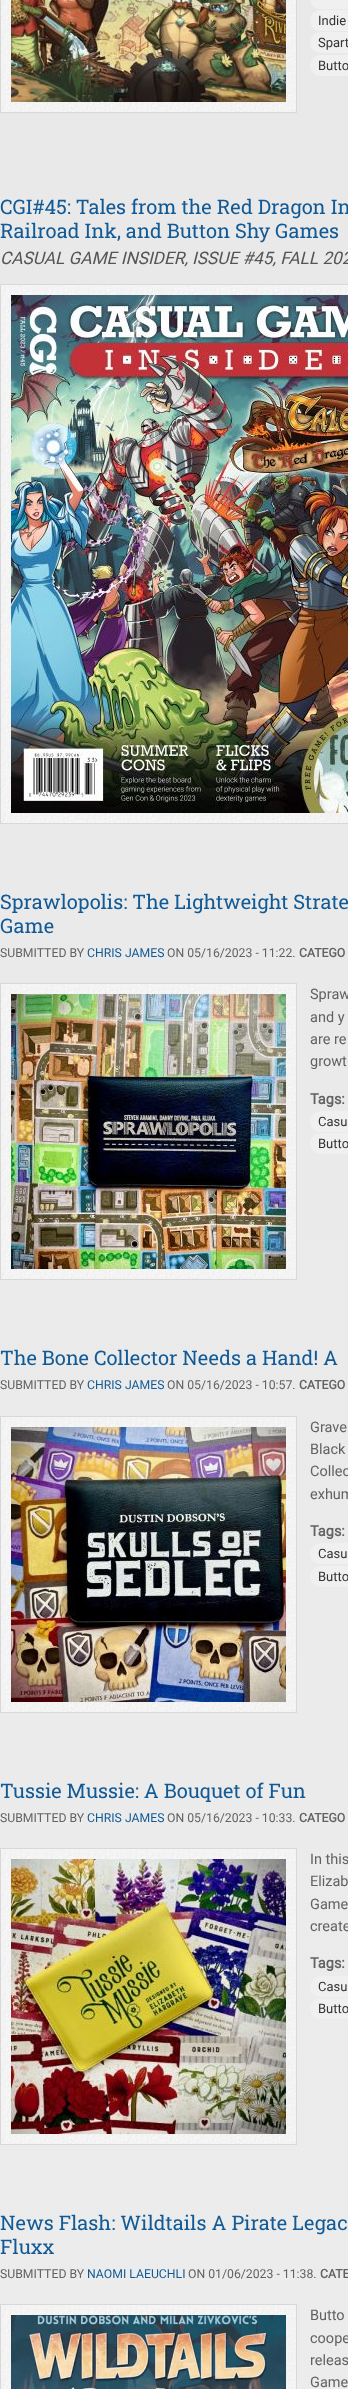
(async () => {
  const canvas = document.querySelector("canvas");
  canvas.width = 348;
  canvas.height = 2389;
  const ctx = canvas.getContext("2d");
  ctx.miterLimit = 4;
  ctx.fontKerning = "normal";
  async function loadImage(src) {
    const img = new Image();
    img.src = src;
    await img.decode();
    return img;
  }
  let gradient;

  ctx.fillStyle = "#ffffff";
  ctx.fillRect(0, 0, 348, 2389);
  gradient = ctx.createLinearGradient(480, -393, 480, 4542);
  gradient.addColorStop(0, "#e8e8e8");
  gradient.addColorStop(1, "#efefef");
  ctx.fillStyle = gradient;
  ctx.fillRect(0, 0, 348, 2389);
  ctx.drawImage(await loadImage("img/1.png"), 1, 0, 295, 112);
  ctx.strokeStyle = "#d8d8d8";
  ctx.strokeRect(0.5, -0.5, 296, 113);
  ctx.fillStyle = "#f0f0f0";
  ctx.beginPath();
  ctx.roundRect(310, -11, 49, 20, 10.5);
  ctx.fill();
  ctx.beginPath();
  ctx.roundRect(310, 10, 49, 21, 10.5);
  ctx.fill();
  ctx.beginPath();
  ctx.roundRect(310, 32, 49, 21, 10.5);
  ctx.fill();
  ctx.beginPath();
  ctx.roundRect(310, 55, 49, 21, 10.5);
  ctx.fill();
  ctx.drawImage(await loadImage("img/2.png"), 1, 285, 347, 538);
  ctx.strokeRect(0.5, 284.5, 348, 539);
  ctx.drawImage(await loadImage("img/3.png"), 1, 984, 295, 295);
  ctx.strokeRect(0.5, 983.5, 296, 296);
  ctx.beginPath();
  ctx.roundRect(310, 1111, 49, 21, 10.5);
  ctx.fill();
  ctx.beginPath();
  ctx.roundRect(310, 1133, 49, 21, 10.5);
  ctx.fill();
  ctx.drawImage(await loadImage("img/4.png"), 1, 1417, 295, 295);
  ctx.strokeRect(0.5, 1416.5, 296, 296);
  ctx.beginPath();
  ctx.roundRect(310, 1543, 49, 21, 10.5);
  ctx.fill();
  ctx.beginPath();
  ctx.roundRect(310, 1566, 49, 21, 10.5);
  ctx.fill();
  ctx.drawImage(await loadImage("img/5.png"), 1, 1849, 295, 295);
  ctx.strokeRect(0.5, 1848.5, 296, 296);
  ctx.beginPath();
  ctx.roundRect(310, 1976, 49, 21, 10.5);
  ctx.fill();
  ctx.beginPath();
  ctx.roundRect(310, 1998, 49, 21, 10.5);
  ctx.fill();
  ctx.drawImage(await loadImage("img/6.png"), 1, 2305, 295, 84);
  ctx.strokeRect(0.5, 2304.5, 296, 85);
  ctx.font = "13px Roboto";
  ctx.fillStyle = "#333333";
  for (const [text, x, y] of [
    ["Indie", 318, 25],
    ["Spart", 318, 47],
    ["Butto", 318, 70],
  ]) {
    ctx.fillText(text, x, y);
  }
  ctx.font = "20px Roboto Slab";
  ctx.fillStyle = "#125a96";
  ctx.fillText("CGI#45: Tales from the Red Dragon In", 0, 214);
  ctx.fillText("Railroad Ink, and Button Shy Games", 0, 238);
  ctx.font = "italic 17.25px Roboto";
  ctx.fillStyle = "#555555";
  ctx.fillText("CASUAL GAME INSIDER, ISSUE #45, FALL 202", 0, 264);
  ctx.font = "20px Roboto Slab";
  ctx.fillStyle = "#125a96";
  ctx.fillText("Sprawlopolis: The Lightweight Strate", 0, 909);
  ctx.fillText("Game", 0, 933);
  ctx.font = "12.25px Roboto";
  ctx.fillStyle = "#626262";
  ctx.fillText("SUBMITTED BY", 0, 957);
  ctx.fillStyle = "#125a96";
  ctx.fillText("CHRIS JAMES", 87, 957);
  ctx.fillStyle = "#626262";
  ctx.fillText("ON 05/16/2023 - 11:22.", 167, 957);
  ctx.font = "bold 12.25px Roboto";
  ctx.fillText("CATEGO", 299, 957);
  ctx.font = "14.5px Roboto";
  for (const [text, x, y] of [
    ["Spraw", 310, 999],
    ["and y", 310, 1022],
    ["are re", 310, 1044],
    ["growt", 310, 1066],
  ]) {
    ctx.fillText(text, x, y);
  }
  ctx.font = "bold 14.5px Roboto";
  ctx.fillText("Tags:", 310, 1104);
  ctx.font = "13px Roboto";
  ctx.fillStyle = "#333333";
  ctx.fillText("Casu", 318, 1126);
  ctx.fillText("Butto", 318, 1148);
  ctx.font = "20px Roboto Slab";
  ctx.fillStyle = "#125a96";
  ctx.fillText("The Bone Collector Needs a Hand! A", 0, 1365);
  ctx.font = "12.25px Roboto";
  ctx.fillStyle = "#626262";
  ctx.fillText("SUBMITTED BY", 0, 1389);
  ctx.fillStyle = "#125a96";
  ctx.fillText("CHRIS JAMES", 87, 1389);
  ctx.fillStyle = "#626262";
  ctx.fillText("ON 05/16/2023 - 10:57.", 167, 1389);
  ctx.font = "bold 12.25px Roboto";
  ctx.fillText("CATEGO", 299, 1389);
  ctx.font = "14.5px Roboto";
  for (const [text, x, y] of [
    ["Grave", 310, 1432],
    ["Black", 310, 1454],
    ["Collec", 310, 1476],
    ["exhum", 310, 1499],
  ]) {
    ctx.fillText(text, x, y);
  }
  ctx.font = "bold 14.5px Roboto";
  ctx.fillText("Tags:", 310, 1536);
  ctx.font = "13px Roboto";
  ctx.fillStyle = "#333333";
  ctx.fillText("Casu", 318, 1558);
  ctx.fillText("Butto", 318, 1581);
  ctx.font = "20px Roboto Slab";
  ctx.fillStyle = "#125a96";
  ctx.fillText("Tussie Mussie: A Bouquet of Fun", 0, 1798);
  ctx.font = "12.25px Roboto";
  ctx.fillStyle = "#626262";
  ctx.fillText("SUBMITTED BY", 0, 1822);
  ctx.fillStyle = "#125a96";
  ctx.fillText("CHRIS JAMES", 87, 1822);
  ctx.fillStyle = "#626262";
  ctx.fillText("ON 05/16/2023 - 10:33.", 167, 1822);
  ctx.font = "bold 12.25px Roboto";
  ctx.fillText("CATEGO", 299, 1822);
  ctx.font = "14.5px Roboto";
  for (const [text, x, y] of [
    ["In this", 310, 1864],
    ["Elizab", 310, 1886],
    ["Game", 310, 1909],
    ["create", 310, 1931],
  ]) {
    ctx.fillText(text, x, y);
  }
  ctx.font = "bold 14.5px Roboto";
  ctx.fillText("Tags:", 310, 1968);
  ctx.font = "13px Roboto";
  ctx.fillStyle = "#333333";
  ctx.fillText("Casu", 318, 1991);
  ctx.fillText("Butto", 318, 2013);
  ctx.font = "20px Roboto Slab";
  ctx.fillStyle = "#125a96";
  ctx.fillText("News Flash: Wildtails A Pirate Legac", 0, 2230);
  ctx.fillText("Fluxx", 0, 2254);
  ctx.font = "12.25px Roboto";
  ctx.fillStyle = "#626262";
  ctx.fillText("SUBMITTED BY", 0, 2278);
  ctx.fillStyle = "#125a96";
  ctx.fillText("NAOMI LAEUCHLI", 87, 2278);
  ctx.fillStyle = "#626262";
  ctx.fillText("ON 01/06/2023 - 11:38.", 188, 2278);
  ctx.font = "bold 12.25px Roboto";
  ctx.fillText("CATE", 320, 2278);
  ctx.font = "14.5px Roboto";
  for (const [text, x, y] of [
    ["Butto", 310, 2320],
    ["coope", 310, 2343],
    ["releas", 310, 2365],
    ["Game", 310, 2387],
  ]) {
    ctx.fillText(text, x, y);
  }
})();
